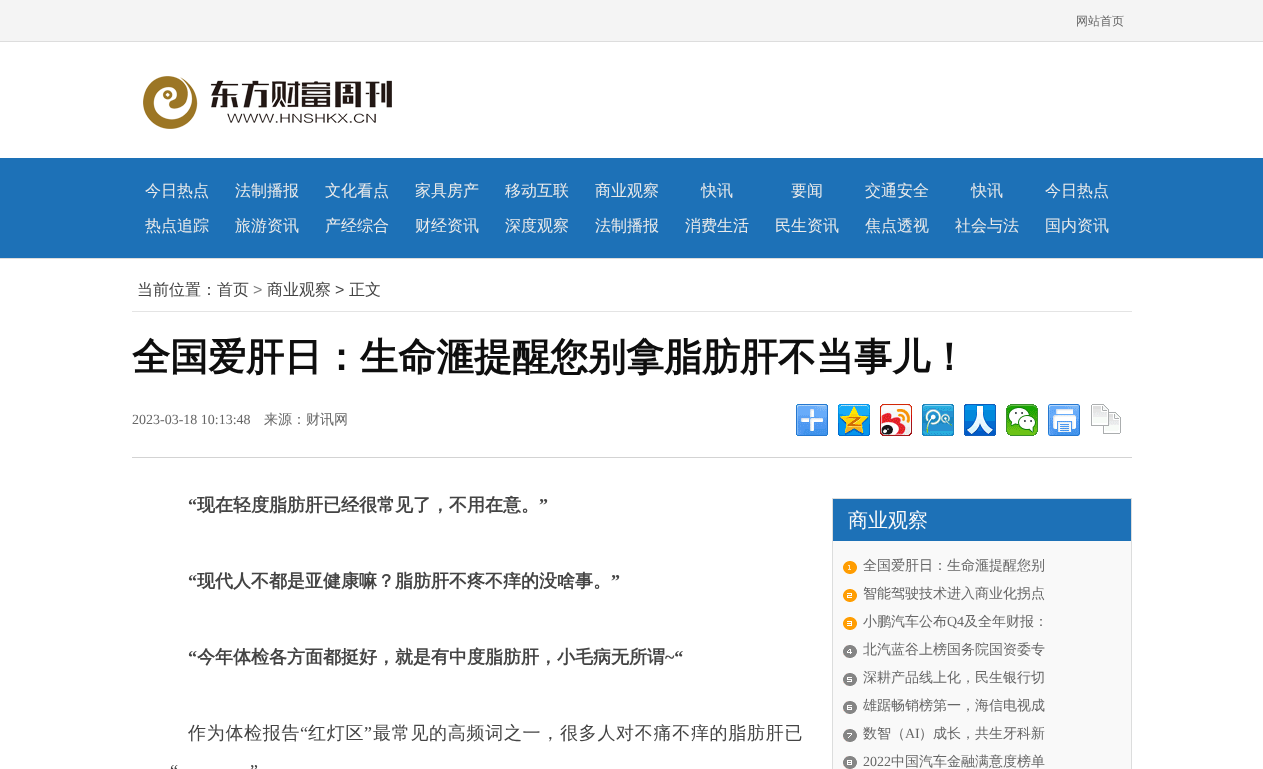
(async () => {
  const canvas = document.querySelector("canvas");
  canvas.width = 1263;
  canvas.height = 769;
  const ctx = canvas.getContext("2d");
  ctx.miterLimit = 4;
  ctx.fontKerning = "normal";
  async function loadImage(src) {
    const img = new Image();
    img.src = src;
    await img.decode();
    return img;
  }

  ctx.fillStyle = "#ffffff";
  ctx.fillRect(0, 0, 1263, 769);
  ctx.fillStyle = "#f4f4f4";
  ctx.fillRect(0, 0, 1263, 41);
  ctx.fillStyle = "#dddddd";
  ctx.fillRect(0, 41, 1263, 1);
  ctx.drawImage(await loadImage("img/1.png"), 143, 76, 249, 53);
  for (const [x, y, w, h, color] of [
    [0, 158, 1263, 100, "#1d71b7"],
    [0, 258, 1263, 1, "#dddddd"],
    [132, 311, 1000, 1, "#e4e4e4"],
    [132, 457, 1000, 1, "#d3d3d3"],
  ]) {
    ctx.fillStyle = color;
    ctx.fillRect(x, y, w, h);
  }
  ctx.drawImage(await loadImage("img/2.png"), 796, 404, 32, 32);
  ctx.drawImage(await loadImage("img/3.png"), 838, 404, 32, 32);
  ctx.drawImage(await loadImage("img/4.png"), 880, 404, 32, 32);
  ctx.drawImage(await loadImage("img/5.png"), 922, 404, 32, 32);
  ctx.drawImage(await loadImage("img/6.png"), 964, 404, 32, 32);
  ctx.drawImage(await loadImage("img/7.png"), 1006, 404, 32, 32);
  ctx.drawImage(await loadImage("img/8.png"), 1048, 404, 32, 32);
  ctx.drawImage(await loadImage("img/9.png"), 1091, 404, 30, 30);
  ctx.fillStyle = "#f9f9f9";
  ctx.fillRect(833, 542, 298, 227);
  ctx.strokeStyle = "#dcdddd";
  ctx.strokeRect(832.5, 498.5, 299, 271);
  ctx.fillStyle = "#1d71b7";
  ctx.fillRect(833, 499, 298, 42);
  ctx.fillStyle = "#f9f9f9";
  ctx.fillRect(833, 541, 298, 1);
  ctx.drawImage(await loadImage("img/10.png"), 843, 561, 14, 208);
  ctx.font = "500 12px WenQuanYi Zen Hei";
  ctx.fillStyle = "#666666";
  ctx.fillText("网站首页", 1076, 25);
  ctx.font = "500 16px WenQuanYi Zen Hei";
  ctx.fillStyle = "#eaeaea";
  for (const [text, x, y] of [
    ["今日热点", 145, 196],
    ["法制播报", 235, 196],
    ["文化看点", 325, 196],
    ["家具房产", 415, 196],
    ["移动互联", 505, 196],
    ["商业观察", 595, 196],
    ["快讯", 701, 196],
    ["要闻", 791, 196],
    ["交通安全", 865, 196],
    ["快讯", 971, 196],
    ["今日热点", 1045, 196],
    ["热点追踪", 145, 231],
    ["旅游资讯", 235, 231],
    ["产经综合", 325, 231],
    ["财经资讯", 415, 231],
    ["深度观察", 505, 231],
    ["法制播报", 595, 231],
    ["消费生活", 685, 231],
    ["民生资讯", 775, 231],
    ["焦点透视", 865, 231],
    ["社会与法", 955, 231],
    ["国内资讯", 1045, 231],
  ]) {
    ctx.fillText(text, x, y);
  }
  ctx.fillStyle = "#444444";
  ctx.fillText("当前位置：首页", 137, 295);
  ctx.font = "16px Liberation Sans";
  ctx.fillStyle = "#7e7e7e";
  ctx.fillText(">", 253, 295);
  ctx.font = "500 16px WenQuanYi Zen Hei";
  ctx.fillStyle = "#444444";
  ctx.fillText("商业观察", 267, 295);
  ctx.font = "16px Liberation Sans";
  ctx.fillText(">", 335, 295);
  ctx.font = "500 16px WenQuanYi Zen Hei";
  ctx.fillText("正文", 349, 295);
  ctx.font = "bold 38px WenQuanYi Zen Hei";
  ctx.fillStyle = "#0e0e0e";
  ctx.fillText("全国爱肝日：生命滙提醒您别拿脂肪肝不当事儿！", 132, 370);
  ctx.font = "14px Liberation Serif";
  ctx.fillStyle = "#666666";
  ctx.fillText("2023-03-18 10:13:48", 132, 424);
  ctx.font = "500 14px WenQuanYi Zen Hei";
  ctx.fillText("来源：财讯网", 264, 424);
  ctx.font = "bold 18px Liberation Serif";
  ctx.fillStyle = "#444444";
  ctx.fillText("“", 188, 511);
  ctx.font = "bold 18px WenQuanYi Zen Hei";
  ctx.fillText("现在轻度脂肪肝已经很常见了，不用在意。", 197, 511);
  ctx.font = "bold 18px Liberation Serif";
  ctx.fillText("”", 539, 511);
  ctx.fillText("“", 188, 587);
  ctx.font = "bold 18px WenQuanYi Zen Hei";
  ctx.fillText("现代人不都是亚健康嘛？脂肪肝不疼不痒的没啥事。", 197, 587);
  ctx.font = "bold 18px Liberation Serif";
  ctx.fillText("”", 611, 587);
  ctx.fillText("“", 188, 663);
  ctx.font = "bold 18px WenQuanYi Zen Hei";
  ctx.fillText("今年体检各方面都挺好，就是有中度脂肪肝，小毛病无所谓", 197, 663);
  ctx.font = "bold 18px Liberation Serif";
  ctx.fillText("~“", 665, 663);
  ctx.letterSpacing = "0.7px";
  ctx.font = "500 18px WenQuanYi Zen Hei";
  ctx.fillText("作为体检报告", 188, 739);
  ctx.font = "18px Liberation Serif";
  ctx.fillText("“", 300, 739);
  ctx.font = "500 18px WenQuanYi Zen Hei";
  ctx.fillText("红灯区", 308, 739);
  ctx.font = "18px Liberation Serif";
  ctx.fillText("”", 364, 739);
  ctx.font = "500 18px WenQuanYi Zen Hei";
  ctx.fillText("最常见的高频词之一，很多人对不痛不痒的脂肪肝已", 373, 739);
  ctx.letterSpacing = "0px";
  ctx.font = "18px Liberation Serif";
  ctx.fillText("“", 170, 777);
  ctx.fillText("”", 250, 777);
  ctx.font = "500 20px WenQuanYi Zen Hei";
  ctx.fillStyle = "#f9f9f9";
  ctx.fillText("商业观察", 848, 527);
  ctx.font = "500 14px WenQuanYi Zen Hei";
  ctx.fillStyle = "#666666";
  for (const [text, x, y] of [
    ["全国爱肝日：生命滙提醒您别", 863, 570],
    ["智能驾驶技术进入商业化拐点", 863, 598],
    ["小鹏汽车公布", 863, 626],
  ]) {
    ctx.fillText(text, x, y);
  }
  ctx.font = "14px Liberation Serif";
  ctx.fillText("Q4", 947, 626);
  ctx.font = "500 14px WenQuanYi Zen Hei";
  for (const [text, x, y] of [
    ["及全年财报：", 964, 626],
    ["北汽蓝谷上榜国务院国资委专", 863, 654],
    ["深耕产品线上化，民生银行切", 863, 682],
    ["雄踞畅销榜第一，海信电视成", 863, 710],
    ["数智（", 863, 738],
  ]) {
    ctx.fillText(text, x, y);
  }
  ctx.font = "14px Liberation Serif";
  ctx.fillText("AI", 905, 738);
  ctx.font = "500 14px WenQuanYi Zen Hei";
  ctx.fillText("）成长，共生牙科新", 919, 738);
  ctx.font = "14px Liberation Serif";
  ctx.fillText("2022", 863, 766);
  ctx.font = "500 14px WenQuanYi Zen Hei";
  ctx.fillText("中国汽车金融满意度榜单", 891, 766);
})();
